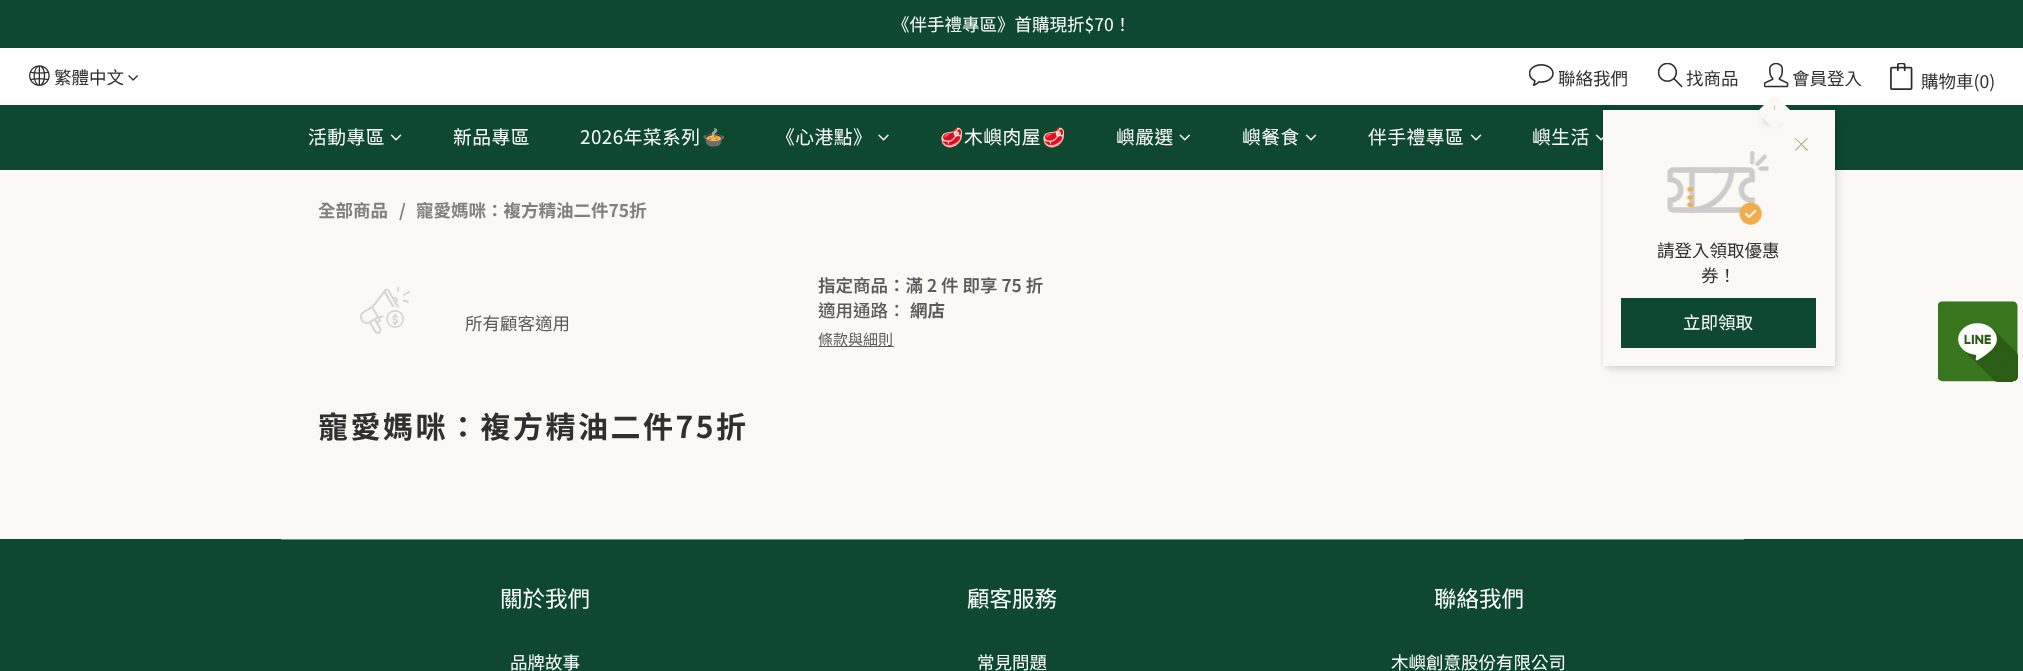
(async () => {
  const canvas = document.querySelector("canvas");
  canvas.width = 2023;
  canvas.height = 671;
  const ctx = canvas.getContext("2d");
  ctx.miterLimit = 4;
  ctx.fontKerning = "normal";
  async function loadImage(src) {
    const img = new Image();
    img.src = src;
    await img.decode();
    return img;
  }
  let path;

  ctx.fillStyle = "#faf9f6";
  ctx.fillRect(0, 0, 2023, 671);
  ctx.fillStyle = "#0e4830";
  ctx.fillRect(0, 0, 2023, 48);
  ctx.fillStyle = "#ffffff";
  ctx.fillRect(0, 48, 2023, 57);
  ctx.drawImage(await loadImage("img/1.png"), 29, 65, 21, 21);
  ctx.drawImage(await loadImage("img/2.png"), 128, 75, 10, 6);
  ctx.drawImage(await loadImage("img/3.png"), 1529, 64, 25, 22);
  ctx.drawImage(await loadImage("img/4.png"), 1764, 63, 25, 25);
  ctx.fillStyle = "#0e4830";
  ctx.fillRect(0, 105, 2023, 65);
  ctx.drawImage(await loadImage("img/11.png"), 1595, 134, 8, 7);
  ctx.fillStyle = "rgba(0, 0, 0, 0.06)";
  ctx.filter = "blur(2.5px)";
  ctx.beginPath();
  ctx.rect(1603, 109, 230, 254);
  ctx.fill();
  ctx.filter = "none";
  ctx.filter = "blur(2.5px)";
  ctx.beginPath();
  ctx.rect(1604, 114, 230, 254);
  ctx.fill();
  ctx.filter = "none";
  ctx.fillStyle = "rgba(0, 0, 0, 0.1)";
  ctx.filter = "blur(4px)";
  ctx.beginPath();
  ctx.rect(1608, 116, 230, 254);
  ctx.fill();
  ctx.filter = "none";
  ctx.fillStyle = "#faf9f6";
  ctx.fillRect(1603, 110, 232, 256);
  ctx.save();
  path = new Path2D("M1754 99H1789V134H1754ZM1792 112L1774.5 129.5L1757 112L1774.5 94.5Z");
  ctx.clip(path, "evenodd");
  ctx.fillStyle = "rgba(0, 0, 0, 0.1)";
  ctx.filter = "blur(2.5px)";
  ctx.beginPath();
  ctx.rect(1763, 108, 17, 17);
  ctx.fill();
  ctx.filter = "none";
  ctx.restore();
  path = new Path2D("M1757 112L1774.5 94.5V112Z");
  ctx.fill(path);
  path = new Path2D("M1774.5 94.5L1792 112H1774.5Z");
  ctx.fill(path);
  ctx.fillStyle = "#b7a87b";
  path = new Path2D("M1807 138L1808 138.5L1795.5 151L1795 150Z");
  ctx.fill(path);
  path = new Path2D("M1795 138.5L1795.5 138L1808 150L1807 151Z");
  ctx.fill(path);
  ctx.drawImage(await loadImage("img/5.png"), 1667, 151, 102, 74);
  ctx.fillStyle = "#0e4830";
  ctx.fillRect(1621, 298, 195, 50);
  ctx.drawImage(await loadImage("img/6.png"), 1658, 63, 25, 25);
  ctx.drawImage(await loadImage("img/7.png"), 1890, 63, 23, 27);
  ctx.drawImage(await loadImage("img/8.png"), 390, 134, 12, 7);
  ctx.drawImage(await loadImage("img/9.png"), 878, 134, 11, 7);
  ctx.drawImage(await loadImage("img/10.png"), 1179, 134, 11, 7);
  ctx.drawImage(await loadImage("img/8.png"), 1305, 134, 12, 7);
  ctx.drawImage(await loadImage("img/8.png"), 1470, 134, 12, 7);
  ctx.drawImage(await loadImage("img/12.png"), 360, 286, 50, 48);
  ctx.fillStyle = "#5b5b5b";
  ctx.fillRect(819, 346, 75, 1);
  ctx.drawImage(await loadImage("img/13.png"), 1938, 301, 80, 81);
  ctx.fillStyle = "#0e4830";
  ctx.fillRect(0, 539, 2023, 132);
  ctx.fillStyle = "#5c9b81";
  ctx.fillRect(281, 539, 1463, 1);
  ctx.font = "17.5px Noto Sans TC";
  ctx.fillStyle = "#ffffff";
  ctx.fillText("《伴手禮專區》首購現折$70！", 892, 31);
  ctx.fillStyle = "#303030";
  for (const [text, x, y] of [
    ["繁體中文", 54, 84],
    ["聯絡我們", 1558, 85],
    ["會員登入", 1792, 85],
    ["請登入領取優惠", 1657, 257],
    ["券！", 1701, 282],
  ]) {
    ctx.fillText(text, x, y);
  }
  ctx.fillStyle = "#ffffff";
  ctx.fillText("立即領取", 1683, 329);
  ctx.fillStyle = "#303030";
  ctx.fillText("找商品", 1686, 85);
  ctx.fillText("購物車(0)", 1921, 88);
  ctx.letterSpacing = "0.5px";
  ctx.font = "18.75px Noto Sans TC";
  ctx.fillStyle = "#ffffff";
  for (const [text, x, y] of [
    ["活動專區", 308, 144],
    ["新品專區", 453, 144],
    ["2026年菜系列", 580, 144],
  ]) {
    ctx.fillText(text, x, y);
  }
  ctx.font = "18.75px Noto Color Emoji";
  ctx.fillText("🍲", 702, 144);
  ctx.font = "18.75px Noto Sans TC";
  ctx.fillText("《心港點》", 776, 144);
  ctx.font = "18.75px Noto Color Emoji";
  ctx.fillText("🥩", 940, 144);
  ctx.font = "18.75px Noto Sans TC";
  ctx.fillText("木嶼肉屋", 964, 144);
  ctx.font = "18.75px Noto Color Emoji";
  ctx.fillText("🥩", 1042, 144);
  ctx.font = "18.75px Noto Sans TC";
  for (const [text, x, y] of [
    ["嶼嚴選", 1116, 144],
    ["嶼餐食", 1242, 144],
    ["伴手禮專區", 1368, 144],
    ["嶼生活", 1532, 144],
  ]) {
    ctx.fillText(text, x, y);
  }
  ctx.letterSpacing = "0px";
  ctx.font = "bold 17.5px Noto Sans TC";
  ctx.fillStyle = "#81807f";
  for (const [text, x, y] of [
    ["全部商品", 318, 217],
    ["/", 399, 217],
    ["寵愛媽咪：複方精油二件75折", 416, 217],
  ]) {
    ctx.fillText(text, x, y);
  }
  ctx.font = "17.5px Noto Sans TC";
  ctx.fillStyle = "#5b5b5b";
  ctx.fillText("所有顧客適用", 465, 330);
  ctx.font = "600 17.5px Noto Sans TC";
  ctx.fillText("指定商品：滿 2 件 即享 75 折", 818, 292);
  ctx.font = "500 17.5px Noto Sans TC";
  ctx.fillText("適用通路：", 818, 317);
  ctx.font = "bold 17.5px Noto Sans TC";
  ctx.fillText("網店", 910, 317);
  ctx.font = "15px Noto Sans TC";
  ctx.fillText("條款與細則", 818, 345);
  ctx.letterSpacing = "2.5px";
  ctx.font = "bold 30px Noto Sans TC";
  ctx.fillStyle = "#303030";
  ctx.fillText("寵愛媽咪：複方精油二件75折", 318, 438);
  ctx.letterSpacing = "0px";
  ctx.font = "22.5px Noto Sans TC";
  ctx.fillStyle = "#ffffff";
  ctx.fillText("關於我們", 500, 607);
  ctx.font = "17.5px Noto Sans TC";
  ctx.fillText("品牌故事", 510, 669);
  ctx.font = "22.5px Noto Sans TC";
  ctx.fillText("顧客服務", 967, 607);
  ctx.font = "17.5px Noto Sans TC";
  ctx.fillText("常見問題", 977, 669);
  ctx.font = "22.5px Noto Sans TC";
  ctx.fillText("聯絡我們", 1434, 607);
  ctx.font = "17.5px Noto Sans TC";
  ctx.fillText("木嶼創意股份有限公司", 1391, 669);
})();
